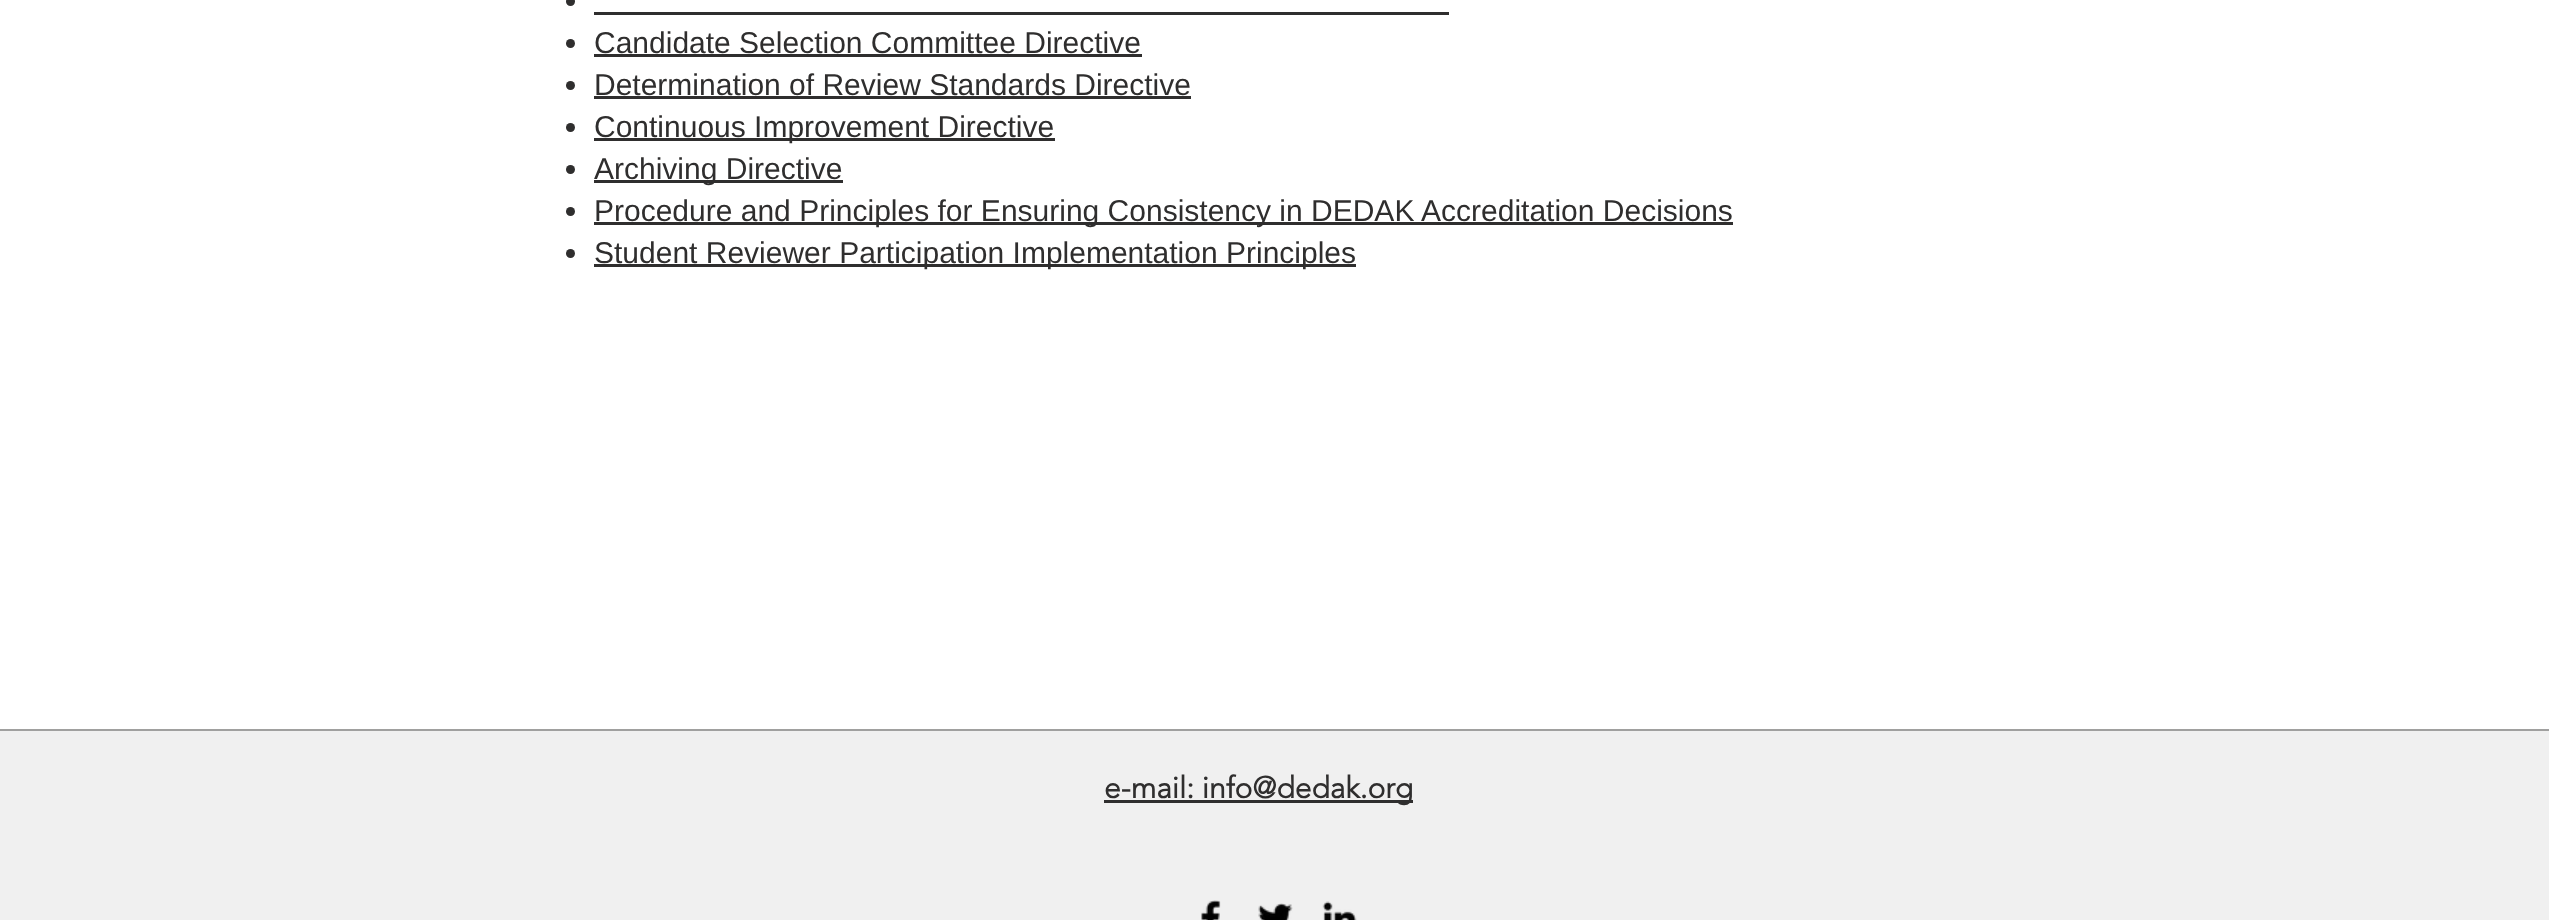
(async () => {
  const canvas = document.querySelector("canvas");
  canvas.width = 2549;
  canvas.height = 920;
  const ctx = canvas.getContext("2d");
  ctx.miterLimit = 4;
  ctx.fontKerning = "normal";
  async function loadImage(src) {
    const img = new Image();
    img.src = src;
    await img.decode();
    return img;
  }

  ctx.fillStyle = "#ffffff";
  ctx.fillRect(0, 0, 2549, 920);
  ctx.fillStyle = "#2f2e2e";
  ctx.beginPath();
  ctx.arc(570.5, 1.5, 4.5, 0, Math.PI * 2);
  ctx.fill();
  ctx.fillRect(594, 12, 855, 3);
  ctx.beginPath();
  ctx.arc(570.5, 43.5, 4.5, 0, Math.PI * 2);
  ctx.fill();
  ctx.fillRect(594, 54, 548, 3);
  ctx.beginPath();
  ctx.arc(570.5, 85.5, 4.5, 0, Math.PI * 2);
  ctx.fill();
  ctx.fillRect(594, 96, 597, 3);
  ctx.beginPath();
  ctx.arc(570.5, 127.5, 4.5, 0, Math.PI * 2);
  ctx.fill();
  ctx.fillRect(594, 138, 461, 3);
  ctx.beginPath();
  ctx.arc(570.5, 169.5, 4.5, 0, Math.PI * 2);
  ctx.fill();
  ctx.fillRect(594, 180, 249, 3);
  ctx.beginPath();
  ctx.arc(570.5, 211.5, 4.5, 0, Math.PI * 2);
  ctx.fill();
  ctx.fillRect(594, 222, 1139, 3);
  ctx.beginPath();
  ctx.arc(570.5, 253.5, 4.5, 0, Math.PI * 2);
  ctx.fill();
  for (const [x, y, w, h, color] of [
    [594, 264, 762, 3, "#2f2e2e"],
    [0, 731, 2549, 189, "#f0f0f0"],
    [0, 729, 2549, 2, "#a0a09f"],
    [1104, 800, 309, 3, "#2f2e2e"],
  ]) {
    ctx.fillStyle = color;
    ctx.fillRect(x, y, w, h);
  }
  ctx.drawImage(await loadImage("img/1.png"), 1201, 900, 20, 20);
  ctx.drawImage(await loadImage("img/2.png"), 1258, 903, 35, 17);
  ctx.drawImage(await loadImage("img/3.png"), 1322, 901, 35, 19);
  ctx.font = "30px Liberation Sans";
  for (const [text, x, y] of [
    ["Candidate Selection Committee Directive", 594, 53],
    ["Determination of Review Standards Directive", 594, 95],
    ["Continuous Improvement Directive", 594, 137],
    ["Archiving Directive", 594, 179],
    ["Procedure and Principles for Ensuring Consistency in DEDAK Accreditation Decisions", 594, 221],
    ["Student Reviewer Participation Implementation Principles", 594, 263],
  ]) {
    ctx.fillText(text, x, y);
  }
  ctx.font = "bold 30px 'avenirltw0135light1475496'";
  ctx.fillText("e-mail: info@dedak.org", 1104, 798);
})();
